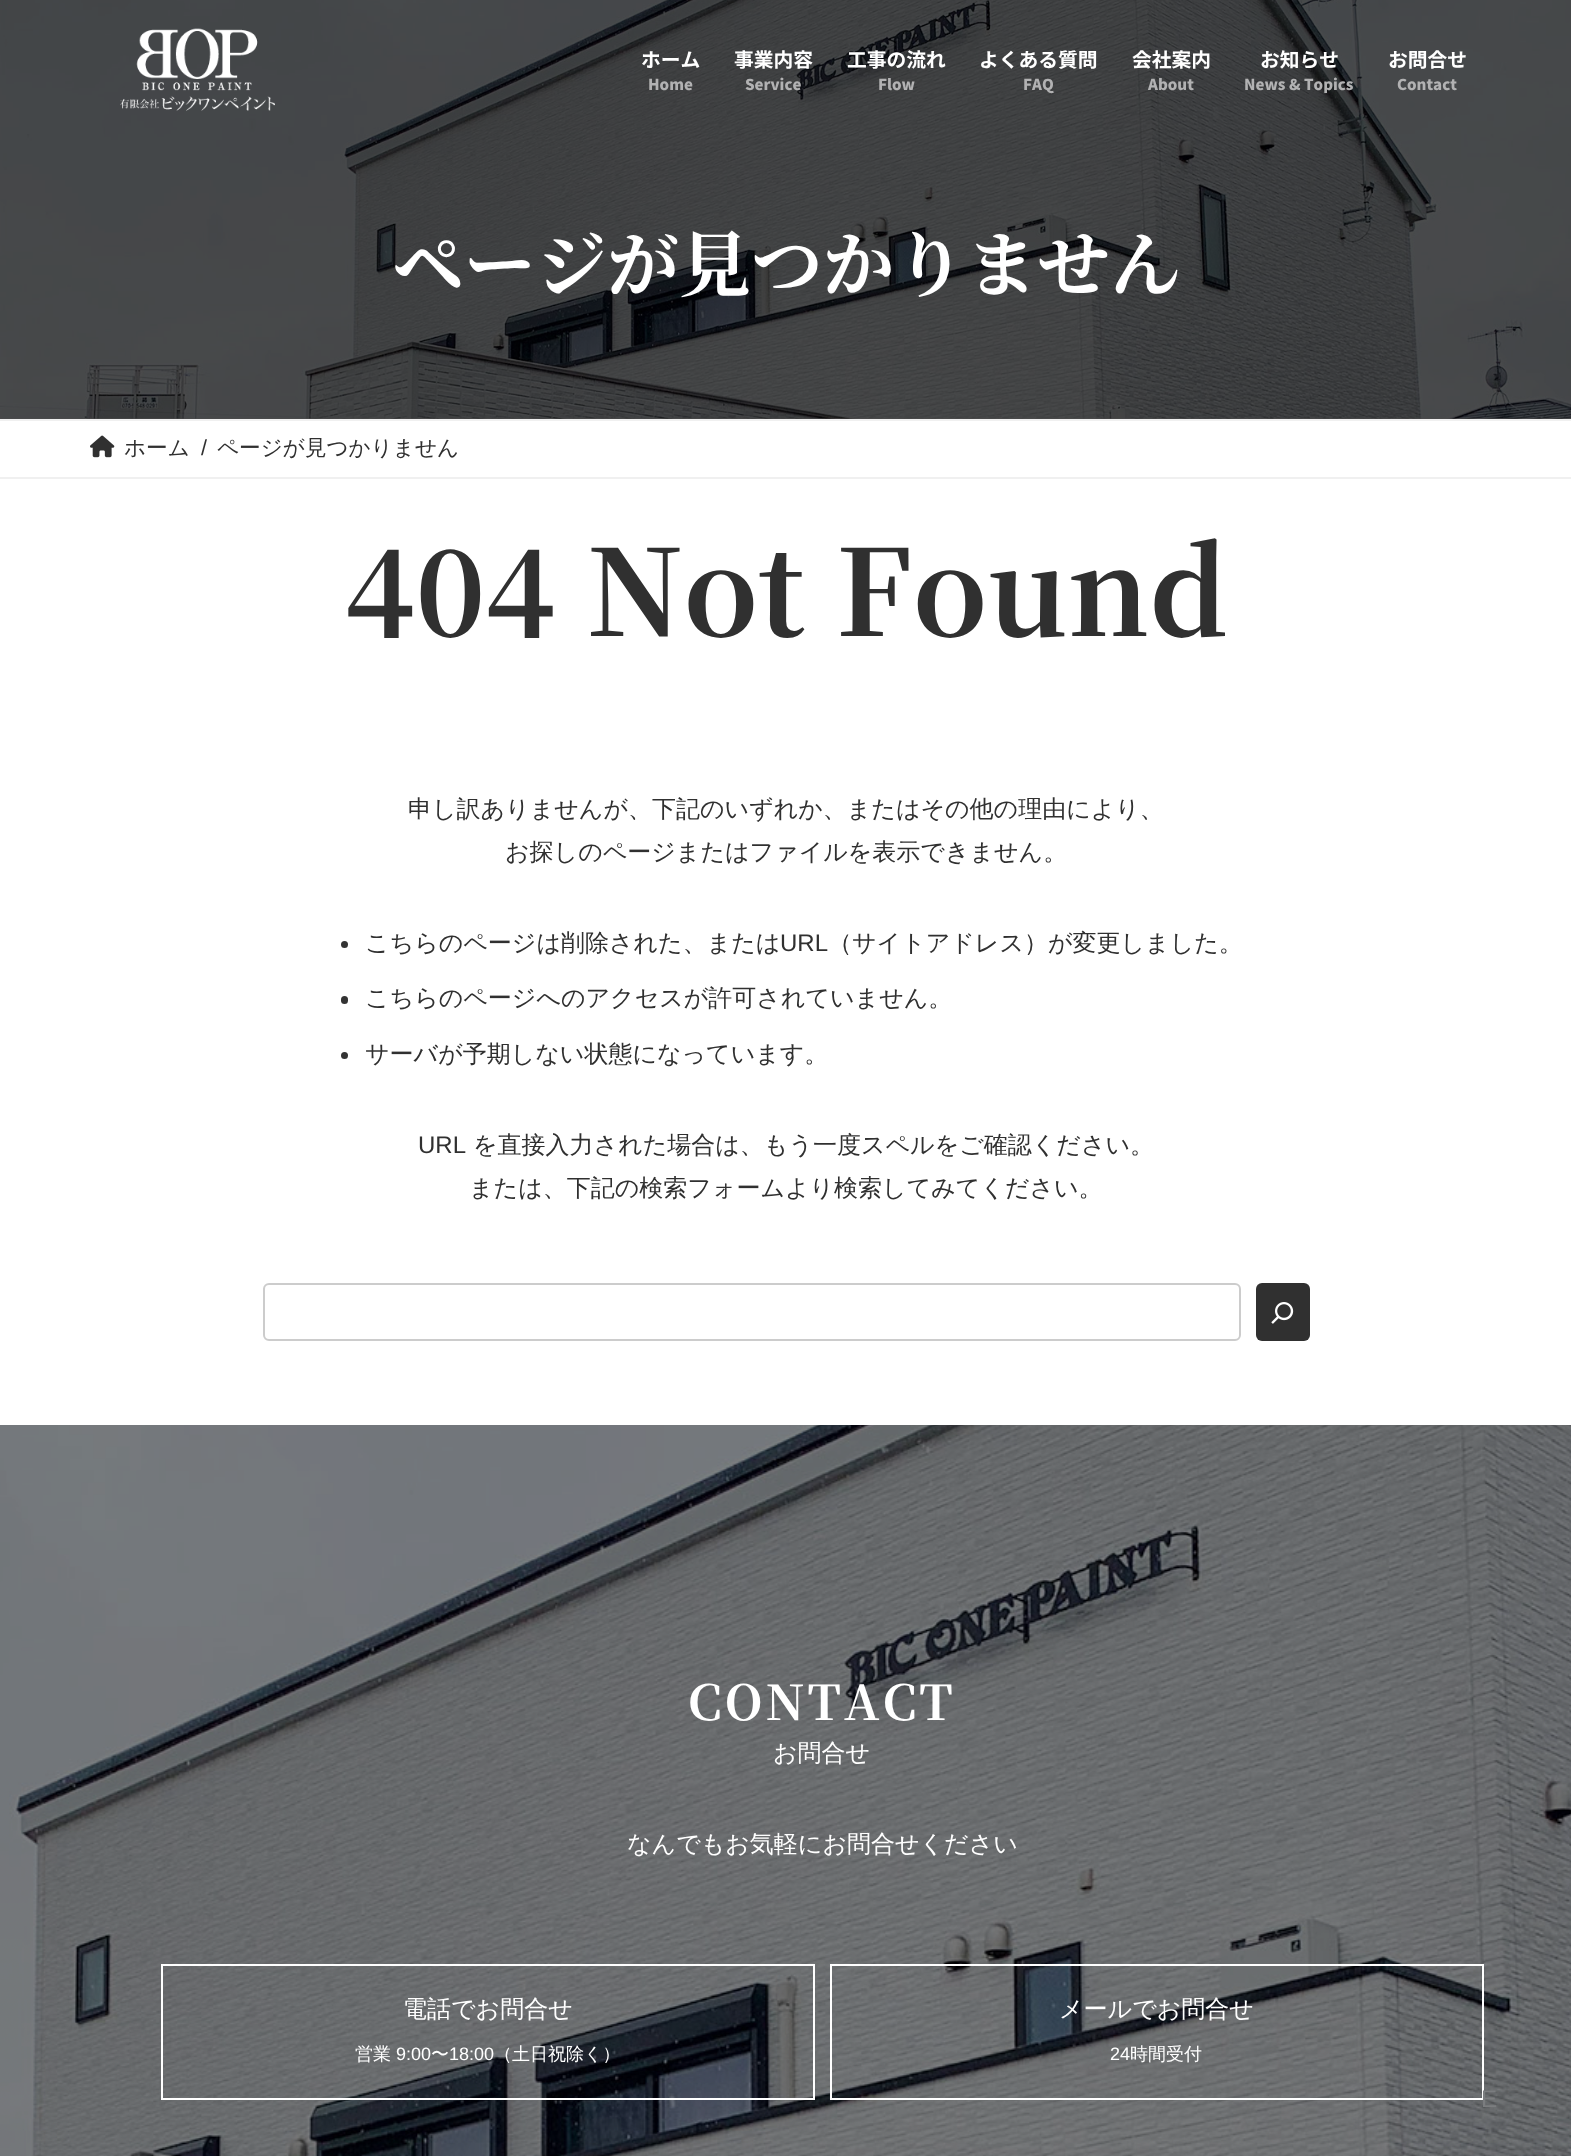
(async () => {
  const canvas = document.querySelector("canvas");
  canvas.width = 1571;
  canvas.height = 2156;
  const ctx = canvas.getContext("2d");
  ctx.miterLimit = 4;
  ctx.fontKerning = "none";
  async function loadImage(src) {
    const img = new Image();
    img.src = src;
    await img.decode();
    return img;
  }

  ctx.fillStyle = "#ffffff";
  ctx.fillRect(0, 0, 1571, 2156);
  ctx.fillStyle = "#4d4d4d";
  ctx.fillRect(0, 418, 1571, 1);
  ctx.drawImage(await loadImage("img/2.png"), 0, 0, 1571, 419);
  ctx.drawImage(await loadImage("img/1.png"), 120, 28, 155, 83);
  ctx.fillStyle = "#f0f0f0";
  ctx.fillRect(0, 419, 1571, 2);
  ctx.fillRect(0, 477, 1571, 2);
  ctx.drawImage(await loadImage("img/3.png"), 90, 435, 25, 23);
  ctx.fillStyle = "#333333";
  ctx.beginPath();
  ctx.arc(344.5, 944.5, 3.5, 0, Math.PI * 2);
  ctx.fill();
  ctx.beginPath();
  ctx.roundRect(341, 996, 7, 8, 3.5);
  ctx.fill();
  ctx.beginPath();
  ctx.arc(344.5, 1055.5, 3.5, 0, Math.PI * 2);
  ctx.fill();
  ctx.beginPath();
  ctx.roundRect(264, 1284, 976, 56, 5);
  ctx.strokeStyle = "#cccccc";
  ctx.lineWidth = 2;
  ctx.stroke();
  ctx.fillStyle = "#303030";
  ctx.beginPath();
  ctx.roundRect(1256, 1283, 54, 58, 6);
  ctx.fill();
  ctx.drawImage(await loadImage("img/4.png"), 1271, 1302, 23, 22);
  ctx.drawImage(await loadImage("img/5.png"), 0, 1425, 1571, 731);
  ctx.strokeStyle = "#ffffff";
  ctx.strokeRect(162, 1965, 652, 134);
  ctx.strokeRect(831, 1965, 652, 134);
  ctx.font = "bold 19.75px Noto Sans JP";
  ctx.fillStyle = "#ffffff";
  ctx.fillText("ホーム", 641, 67);
  ctx.font = "100 15px Noto Sans JP";
  ctx.fillStyle = "#b2b2b3";
  ctx.fillText("Home", 648, 90);
  ctx.font = "bold 19.75px Noto Sans JP";
  ctx.fillStyle = "#ffffff";
  ctx.fillText("事業内容", 734, 67);
  ctx.font = "100 15px Noto Sans JP";
  ctx.fillStyle = "#b2b2b3";
  ctx.fillText("Service", 745, 90);
  ctx.font = "bold 19.75px Noto Sans JP";
  ctx.fillStyle = "#ffffff";
  ctx.fillText("工事の流れ", 847, 67);
  ctx.font = "100 15px Noto Sans JP";
  ctx.fillStyle = "#b2b2b3";
  ctx.fillText("Flow", 878, 90);
  ctx.font = "bold 19.75px Noto Sans JP";
  ctx.fillStyle = "#ffffff";
  ctx.fillText("よくある質問", 979, 67);
  ctx.font = "100 15px Noto Sans JP";
  ctx.fillStyle = "#b2b2b3";
  ctx.fillText("FAQ", 1023, 90);
  ctx.font = "bold 19.75px Noto Sans JP";
  ctx.fillStyle = "#ffffff";
  ctx.fillText("会社案内", 1132, 67);
  ctx.font = "100 15px Noto Sans JP";
  ctx.fillStyle = "#b2b2b3";
  ctx.fillText("About", 1148, 90);
  ctx.font = "bold 19.75px Noto Sans JP";
  ctx.fillStyle = "#ffffff";
  ctx.fillText("お知らせ", 1260, 67);
  ctx.font = "100 15px Noto Sans JP";
  ctx.fillStyle = "#b2b2b3";
  ctx.fillText("News & Topics", 1244, 90);
  ctx.font = "bold 19.75px Noto Sans JP";
  ctx.fillStyle = "#ffffff";
  ctx.fillText("お問合せ", 1388, 67);
  ctx.font = "100 15px Noto Sans JP";
  ctx.fillStyle = "#b2b2b3";
  ctx.fillText("Contact", 1397, 90);
  ctx.font = "200 71.75px Noto Serif JP";
  ctx.fillStyle = "#ffffff";
  ctx.fillText("ページが見つかりません", 392, 291);
  ctx.font = "500 21.6px WenQuanYi Zen Hei";
  ctx.fillStyle = "#303030";
  ctx.fillText("ホーム", 124, 455);
  ctx.font = "21.6px Liberation Sans";
  ctx.fillText("/", 201, 455);
  ctx.font = "500 21.6px WenQuanYi Zen Hei";
  ctx.fillText("ページが見つかりません", 217, 455);
  ctx.wordSpacing = "1px";
  ctx.font = "200 119.25px Noto Serif JP";
  ctx.fillText("404 Not Found", 345, 636);
  ctx.wordSpacing = "0px";
  ctx.font = "500 24px WenQuanYi Zen Hei";
  for (const [text, x, y] of [
    ["申し訳ありませんが、下記のいずれか、またはその他の理由により、", 408, 817],
    ["お探しのページまたはファイルを表示できません。", 505, 860],
    ["こちらのページは削除された、または", 365, 951],
  ]) {
    ctx.fillText(text, x, y);
  }
  ctx.font = "24px Liberation Sans";
  ctx.fillText("URL", 780, 951);
  ctx.font = "500 24px WenQuanYi Zen Hei";
  for (const [text, x, y] of [
    ["（サイトアドレス）が変更しました。", 828, 951],
    ["こちらのページへのアクセスが許可されていません。", 365, 1006],
    ["サーバが予期しない状態になっています。", 365, 1062],
  ]) {
    ctx.fillText(text, x, y);
  }
  ctx.font = "24px Liberation Sans";
  ctx.fillText("URL", 418, 1153);
  ctx.font = "500 24px WenQuanYi Zen Hei";
  ctx.fillText("を直接入力された場合は、もう一度スペルをご確認ください。", 473, 1153);
  ctx.fillText("または、下記の検索フォームより検索してみてください。", 469, 1196);
  ctx.letterSpacing = "3px";
  ctx.font = "200 48px Noto Serif JP";
  ctx.fillStyle = "#ffffff";
  ctx.fillText("CONTACT", 688, 1720);
  ctx.letterSpacing = "0px";
  ctx.font = "500 24px WenQuanYi Zen Hei";
  for (const [text, x, y] of [
    ["お問合せ", 773, 1761],
    ["なんでもお気軽にお問合せください", 627, 1852],
    ["電話でお問合せ", 403, 2017],
  ]) {
    ctx.fillText(text, x, y);
  }
  ctx.font = "500 18px WenQuanYi Zen Hei";
  ctx.fillText("営業", 355, 2060);
  ctx.font = "18px Liberation Sans";
  ctx.fillText("9:00", 396, 2060);
  ctx.font = "500 18px WenQuanYi Zen Hei";
  ctx.fillText("〜", 431, 2060);
  ctx.font = "18px Liberation Sans";
  ctx.fillText("18:00", 449, 2060);
  ctx.font = "500 18px WenQuanYi Zen Hei";
  ctx.fillText("（土日祝除く）", 494, 2060);
  ctx.font = "500 24px WenQuanYi Zen Hei";
  ctx.fillText("メールでお問合せ", 1059, 2017);
  ctx.font = "18px Liberation Sans";
  ctx.fillText("24", 1110, 2060);
  ctx.font = "500 18px WenQuanYi Zen Hei";
  ctx.fillText("時間受付", 1130, 2060);
  ctx.font = "24px Liberation Sans";
  ctx.fillStyle = "#7b7d7f";
  ctx.fillText("E", 1481, 2107);
})();
